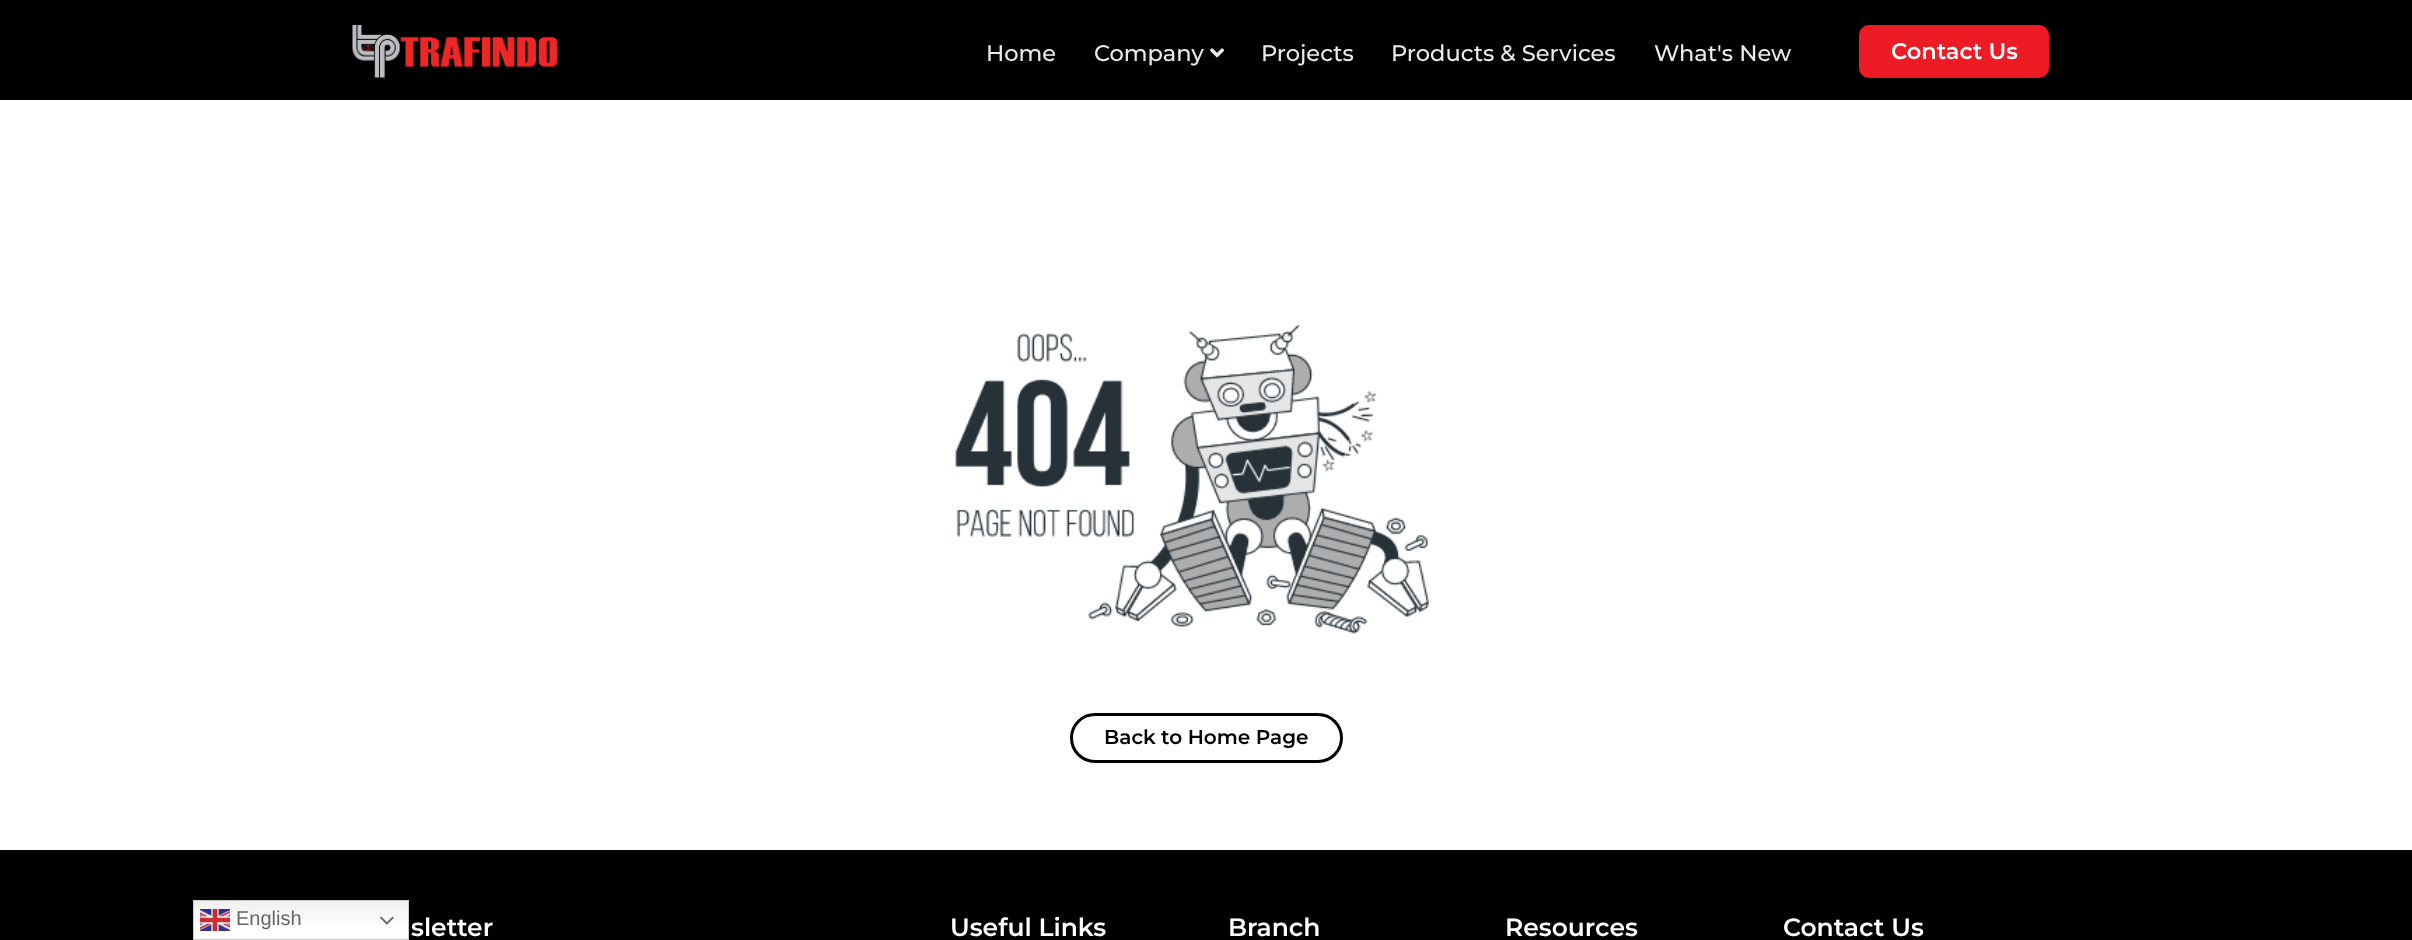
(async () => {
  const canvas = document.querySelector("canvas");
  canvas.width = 2412;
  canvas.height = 940;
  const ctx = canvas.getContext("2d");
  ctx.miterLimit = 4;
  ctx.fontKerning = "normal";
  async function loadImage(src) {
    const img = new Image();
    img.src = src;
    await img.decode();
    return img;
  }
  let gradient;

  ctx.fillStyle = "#ffffff";
  ctx.fillRect(0, 0, 2412, 940);
  ctx.fillStyle = "#000000";
  ctx.fillRect(0, 0, 2412, 100);
  ctx.drawImage(await loadImage("img/1.png"), 352, 25, 206, 53);
  ctx.drawImage(await loadImage("img/2.png"), 1210, 48, 15, 10);
  ctx.fillStyle = "#ed1b24";
  ctx.beginPath();
  ctx.roundRect(1859, 25, 190, 53, 10);
  ctx.fill();
  ctx.drawImage(await loadImage("img/3.png"), 955, 324, 475, 310);
  ctx.beginPath();
  ctx.roundRect(1071.5, 714.5, 270, 47, 23.5);
  ctx.strokeStyle = "#000000";
  ctx.lineWidth = 3;
  ctx.stroke();
  ctx.fillStyle = "#000000";
  ctx.fillRect(0, 850, 2412, 90);
  gradient = ctx.createLinearGradient(301, 900, 301, 940);
  gradient.addColorStop(0, "#efefef");
  gradient.addColorStop(0.7, "#ffffff");
  ctx.fillStyle = gradient;
  ctx.fillRect(194, 901, 214, 38);
  ctx.strokeStyle = "#cccccc";
  ctx.lineWidth = 1;
  ctx.strokeRect(193.5, 900.5, 215, 39);
  ctx.drawImage(await loadImage("img/4.png"), 200, 908, 30, 24);
  ctx.drawImage(await loadImage("img/5.png"), 380, 916, 14, 9);
  ctx.font = "500 22.5px Montserrat";
  ctx.fillStyle = "#ebebeb";
  for (const [text, x, y] of [
    ["Home", 986, 61],
    ["Company", 1094, 61],
    ["Projects", 1261, 61],
    ["Products & Services", 1391, 61],
    ["What's New", 1654, 61],
  ]) {
    ctx.fillText(text, x, y);
  }
  ctx.font = "600 22.5px Montserrat";
  ctx.fillStyle = "#ffffff";
  ctx.fillText("Contact Us", 1891, 59);
  ctx.font = "600 20px Montserrat";
  ctx.fillStyle = "#000000";
  ctx.fillText("Back to Home Page", 1104, 744);
  ctx.font = "20px Liberation Sans";
  ctx.fillStyle = "#666666";
  ctx.fillText("English", 236, 925);
  ctx.font = "600 25px Montserrat";
  ctx.fillStyle = "#ffffff";
  for (const [text, x, y] of [
    ["sletter", 411, 936],
    ["Useful Links", 950, 936],
    ["Branch", 1228, 936],
    ["Resources", 1505, 936],
    ["Contact Us", 1783, 936],
  ]) {
    ctx.fillText(text, x, y);
  }
})();
